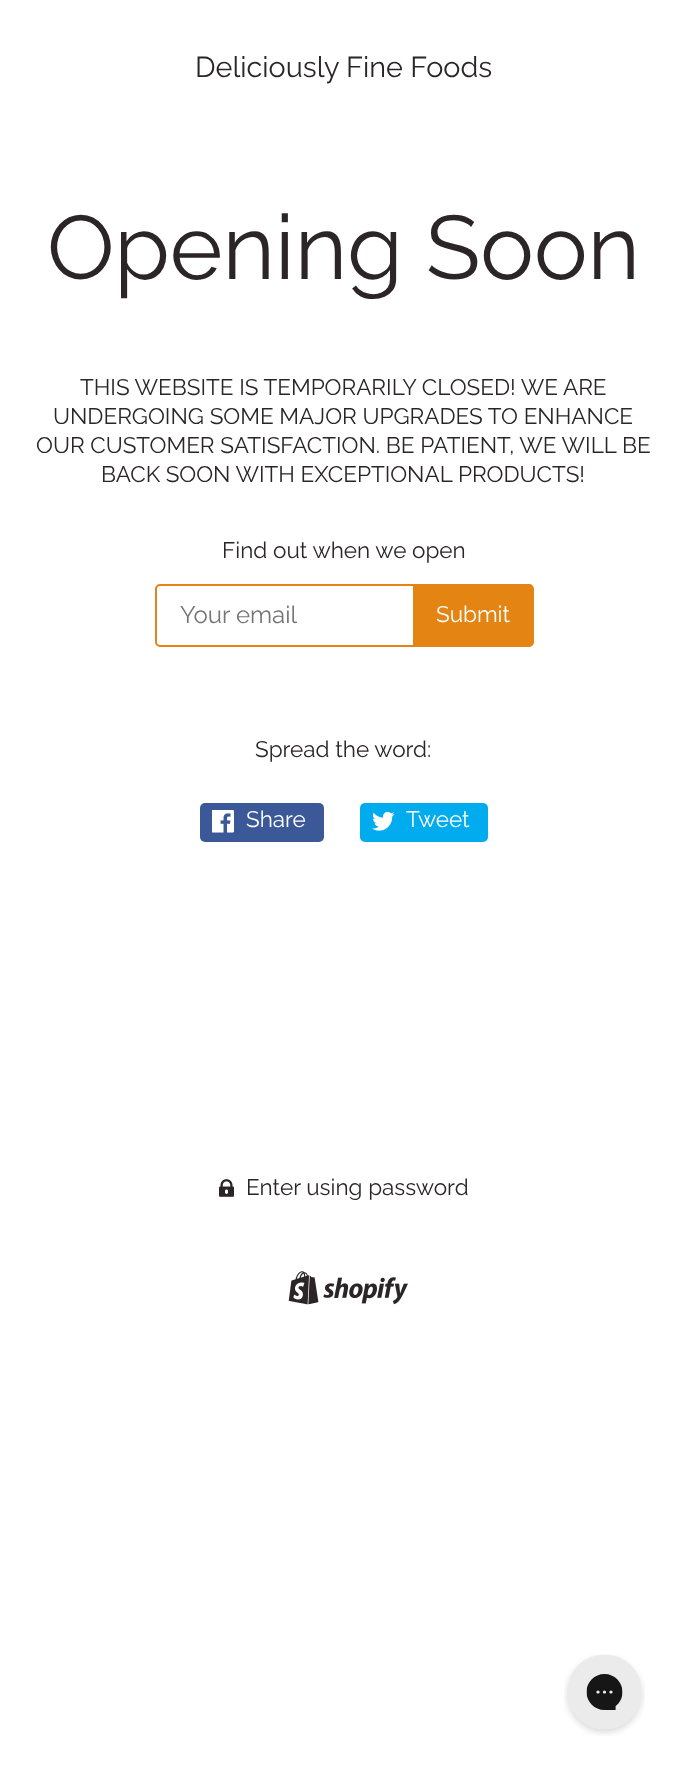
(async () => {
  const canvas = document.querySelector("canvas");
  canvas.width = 686;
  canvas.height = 1770;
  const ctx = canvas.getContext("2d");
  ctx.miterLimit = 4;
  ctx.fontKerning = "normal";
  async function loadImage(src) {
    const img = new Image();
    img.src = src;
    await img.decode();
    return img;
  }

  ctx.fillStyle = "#ffffff";
  ctx.fillRect(0, 0, 686, 1770);
  ctx.beginPath();
  ctx.roundRect(156, 585, 376, 61, 4);
  ctx.strokeStyle = "#e38413";
  ctx.lineWidth = 2;
  ctx.stroke();
  ctx.fillStyle = "#e38413";
  ctx.beginPath();
  ctx.roundRect(414, 585, 119, 61, [0, 4, 4, 0]);
  ctx.fill();
  ctx.stroke();
  ctx.fillStyle = "#3b5998";
  ctx.beginPath();
  ctx.roundRect(200, 803, 124, 39, 5);
  ctx.fill();
  ctx.drawImage(await loadImage("img/1.png"), 212, 810, 22, 23);
  ctx.fillStyle = "#00aced";
  ctx.beginPath();
  ctx.roundRect(360, 803, 128, 39, 5);
  ctx.fill();
  ctx.drawImage(await loadImage("img/2.png"), 372, 811, 23, 20);
  ctx.drawImage(await loadImage("img/3.png"), 219, 1179, 15, 18);
  ctx.drawImage(await loadImage("img/4.png"), 288, 1271, 120, 34);
  ctx.drawImage(await loadImage("img/5.png"), 564, 1654, 81, 82);
  ctx.font = "100 28.75px Raleway";
  ctx.fillStyle = "#2c2528";
  ctx.fillText("Deliciously Fine Foods", 195, 77);
  ctx.font = "100 90px Raleway";
  ctx.fillText("Opening Soon", 47, 279);
  ctx.font = "100 22.5px Raleway";
  for (const [text, x, y] of [
    ["THIS WEBSITE IS TEMPORARILY CLOSED! WE ARE", 80, 395],
    ["UNDERGOING SOME MAJOR UPGRADES TO ENHANCE", 53, 424],
    ["OUR CUSTOMER SATISFACTION. BE PATIENT, WE WILL BE", 36, 453],
    ["BACK SOON WITH EXCEPTIONAL PRODUCTS!", 101, 482],
    ["Find out when we open", 222, 558],
  ]) {
    ctx.fillText(text, x, y);
  }
  ctx.font = "100 24px Raleway";
  ctx.fillStyle = "#757575";
  ctx.fillText("Your email", 180, 623);
  ctx.font = "100 22.5px Raleway";
  ctx.fillStyle = "#ffffff";
  ctx.fillText("Submit", 436, 622);
  ctx.fillStyle = "#2c2528";
  ctx.fillText("Spread the word:", 255, 757);
  ctx.fillStyle = "#ffffff";
  ctx.fillText("Share", 246, 827);
  ctx.fillText("Tweet", 406, 827);
  ctx.fillStyle = "#2c2528";
  ctx.fillText("Enter using password", 246, 1195);
})();
